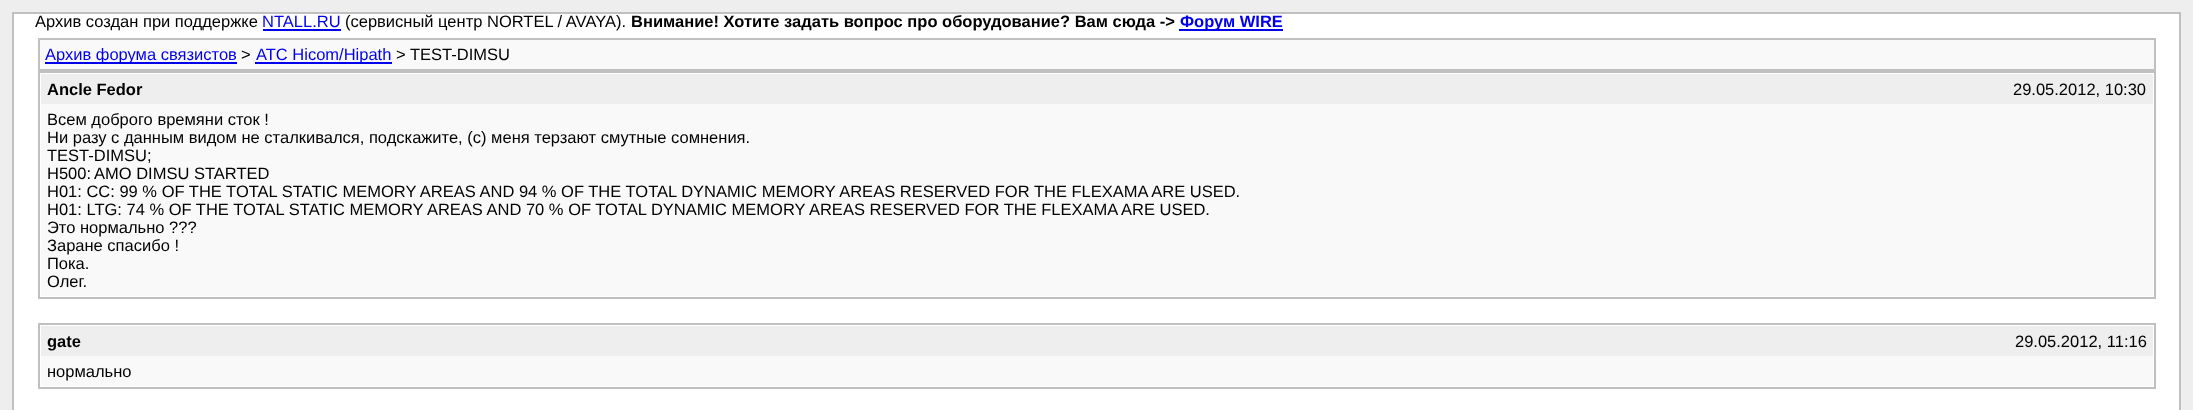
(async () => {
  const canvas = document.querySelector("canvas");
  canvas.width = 2193;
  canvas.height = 410;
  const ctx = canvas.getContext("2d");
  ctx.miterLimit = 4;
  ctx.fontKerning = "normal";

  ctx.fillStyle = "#eeeeee";
  ctx.fillRect(0, 0, 2193, 410);
  ctx.fillStyle = "#ffffff";
  ctx.beginPath();
  ctx.rect(13, 13, 2167, 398);
  ctx.fill();
  ctx.strokeStyle = "#c0c0c0";
  ctx.lineWidth = 2;
  ctx.stroke();
  ctx.fillStyle = "#0000ee";
  ctx.fillRect(263, 29, 78, 2);
  ctx.fillRect(1179, 29, 104, 2);
  ctx.fillStyle = "#f9f9f9";
  ctx.beginPath();
  ctx.rect(39, 39, 2116, 31);
  ctx.fill();
  ctx.stroke();
  ctx.fillStyle = "#0000ee";
  ctx.fillRect(45, 62, 192, 2);
  ctx.fillRect(255, 62, 137, 2);
  ctx.strokeRect(39, 72, 2116, 226);
  ctx.fillStyle = "#eeeeee";
  ctx.fillRect(41, 74, 2112, 30);
  ctx.fillStyle = "#f9f9f9";
  ctx.fillRect(41, 104, 2112, 192);
  ctx.strokeRect(39, 324, 2116, 64);
  ctx.fillStyle = "#eeeeee";
  ctx.fillRect(41, 326, 2112, 30);
  ctx.fillStyle = "#f9f9f9";
  ctx.fillRect(41, 356, 2112, 30);
  ctx.font = "16.5px Liberation Sans";
  ctx.fillStyle = "#000000";
  ctx.fillText("Архив создан при поддержке", 35, 27);
  ctx.fillStyle = "#0000ee";
  ctx.fillText("NTALL.RU", 262, 27);
  ctx.fillStyle = "#000000";
  ctx.fillText("(сервисный центр NORTEL / AVAYA).", 345, 27);
  ctx.font = "bold 16.5px Liberation Sans";
  ctx.fillText("Внимание! Хотите задать вопрос про оборудование? Вам сюда ->", 631, 27);
  ctx.fillStyle = "#0000ee";
  ctx.fillText("Форум WIRE", 1180, 27);
  ctx.font = "16.5px Liberation Sans";
  ctx.fillText("Архив форума связистов", 45, 60);
  ctx.fillStyle = "#000000";
  ctx.fillText(">", 241, 60);
  ctx.fillStyle = "#0000ee";
  ctx.fillText("АТС Hicom/Hipath", 256, 60);
  ctx.fillStyle = "#000000";
  ctx.fillText(">", 396, 60);
  ctx.fillText("TEST-DIMSU", 410, 60);
  ctx.font = "bold 16.5px Liberation Sans";
  ctx.fillText("Ancle Fedor", 47, 95);
  ctx.font = "16.5px Liberation Sans";
  for (const [text, x, y] of [
    ["29.05.2012, 10:30", 2013, 95],
    ["Всем доброго времяни сток !", 47, 125],
    ["Ни разу с данным видом не сталкивался, подскажите, (c) меня терзают смутные сомнения.", 47, 143],
    ["TEST-DIMSU;", 47, 161],
    ["H500:", 47, 179],
    ["AMO DIMSU STARTED", 94, 179],
    ["H01: CC: 99 % OF THE TOTAL STATIC MEMORY AREAS AND 94 % OF THE TOTAL DYNAMIC MEMORY AREAS RESERVED FOR THE FLEXAMA ARE USED.", 47, 197],
    ["H01: LTG: 74 % OF THE TOTAL STATIC MEMORY AREAS AND 70 % OF TOTAL DYNAMIC MEMORY AREAS RESERVED FOR THE FLEXAMA ARE USED.", 47, 215],
    ["Это нормально ???", 47, 233],
    ["Заране спасибо !", 47, 251],
    ["Пока.", 47, 269],
    ["Олег.", 47, 287],
  ]) {
    ctx.fillText(text, x, y);
  }
  ctx.font = "bold 16.5px Liberation Sans";
  ctx.fillText("gate", 47, 347);
  ctx.font = "16.5px Liberation Sans";
  ctx.fillText("29.05.2012, 11:16", 2015, 347);
  ctx.fillText("нормально", 47, 377);
})();
